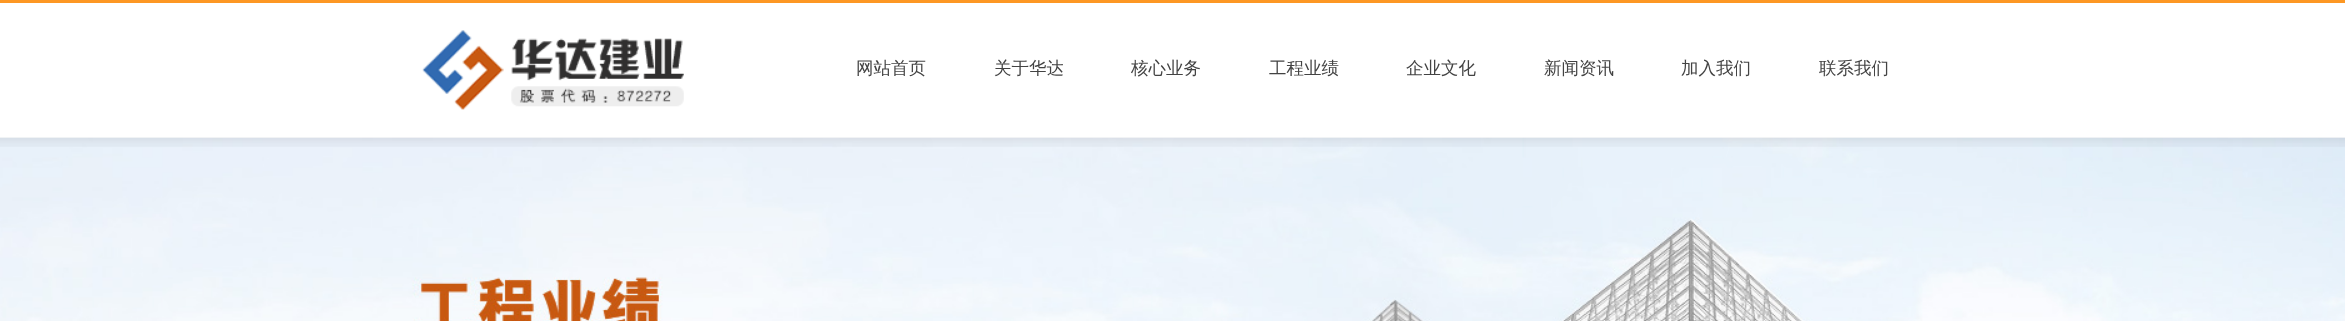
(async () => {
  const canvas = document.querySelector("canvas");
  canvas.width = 2345;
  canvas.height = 321;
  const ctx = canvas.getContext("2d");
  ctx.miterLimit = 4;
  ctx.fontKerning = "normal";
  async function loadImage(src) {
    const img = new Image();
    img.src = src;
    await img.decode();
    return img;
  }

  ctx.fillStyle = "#ffffff";
  ctx.fillRect(0, 0, 2345, 321);
  ctx.fillStyle = "#fd9723";
  ctx.fillRect(0, 0, 2345, 3);
  ctx.drawImage(await loadImage("img/1.png"), 422, 30, 262, 80);
  ctx.drawImage(await loadImage("img/3.png"), 0, 137, 2345, 184);
  ctx.drawImage(await loadImage("img/2.png"), 0, 137, 2345, 10);
  ctx.font = "500 17.5px WenQuanYi Zen Hei";
  ctx.fillStyle = "#434343";
  for (const [text, x, y] of [
    ["网站首页", 856, 74],
    ["关于华达", 994, 74],
    ["核心业务", 1131, 74],
    ["工程业绩", 1269, 74],
    ["企业文化", 1406, 74],
    ["新闻资讯", 1544, 74],
    ["加入我们", 1681, 74],
    ["联系我们", 1819, 74],
  ]) {
    ctx.fillText(text, x, y);
  }
})();
